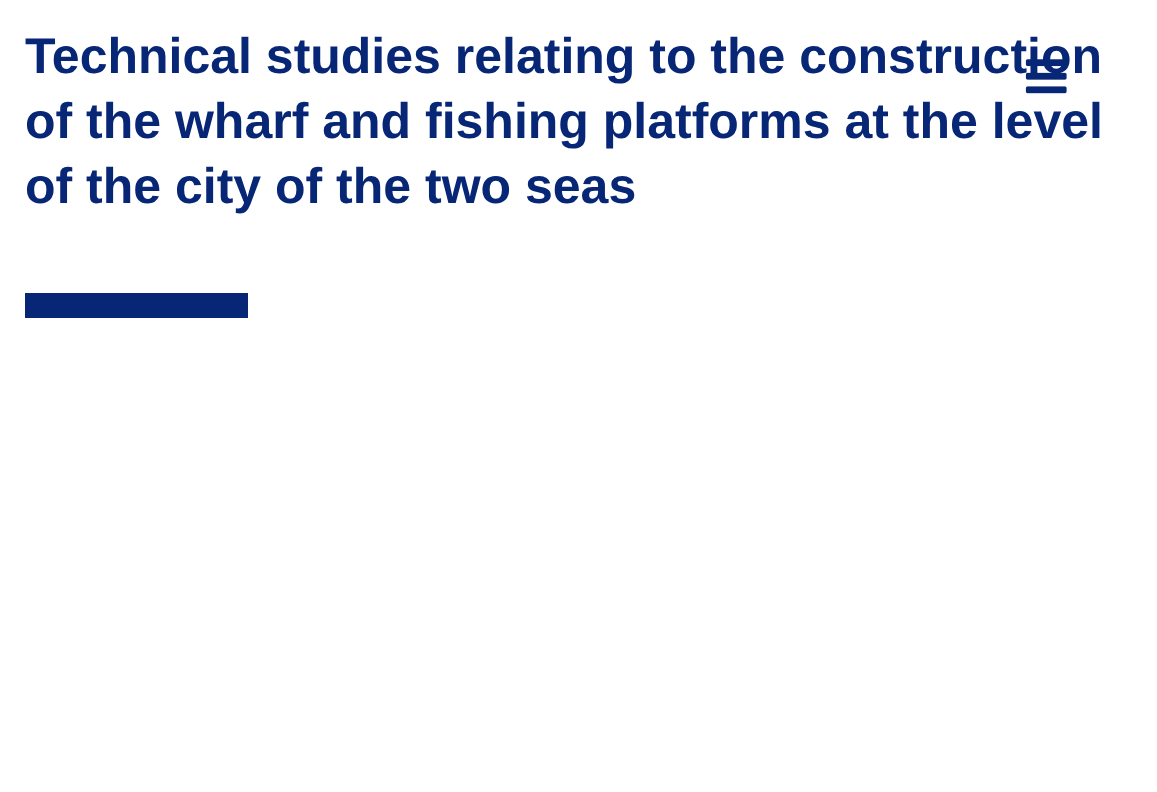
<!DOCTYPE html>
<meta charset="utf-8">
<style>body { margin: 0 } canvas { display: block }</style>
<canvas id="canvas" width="1157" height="792"></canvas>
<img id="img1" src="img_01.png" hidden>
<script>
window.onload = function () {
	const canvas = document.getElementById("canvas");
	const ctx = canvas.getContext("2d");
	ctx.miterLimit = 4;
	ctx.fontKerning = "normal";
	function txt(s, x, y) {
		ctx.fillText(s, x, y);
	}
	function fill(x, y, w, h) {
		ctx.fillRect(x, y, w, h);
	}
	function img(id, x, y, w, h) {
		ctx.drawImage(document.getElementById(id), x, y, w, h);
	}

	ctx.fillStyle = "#FFFFFF";
	fill(0, 0, 1157, 792);
	ctx.fillStyle = "#072676";
	fill(25, 293, 223, 25);
	ctx.font = "bold 50px Liberation Sans";
	txt("Technical studies relating to the construction", 25, 73);
	txt("of the wharf and fishing platforms at the level", 25, 138);
	txt("of the city of the two seas", 25, 203);
	img("img1", 1025, 59, 42, 35);
};
</script>
